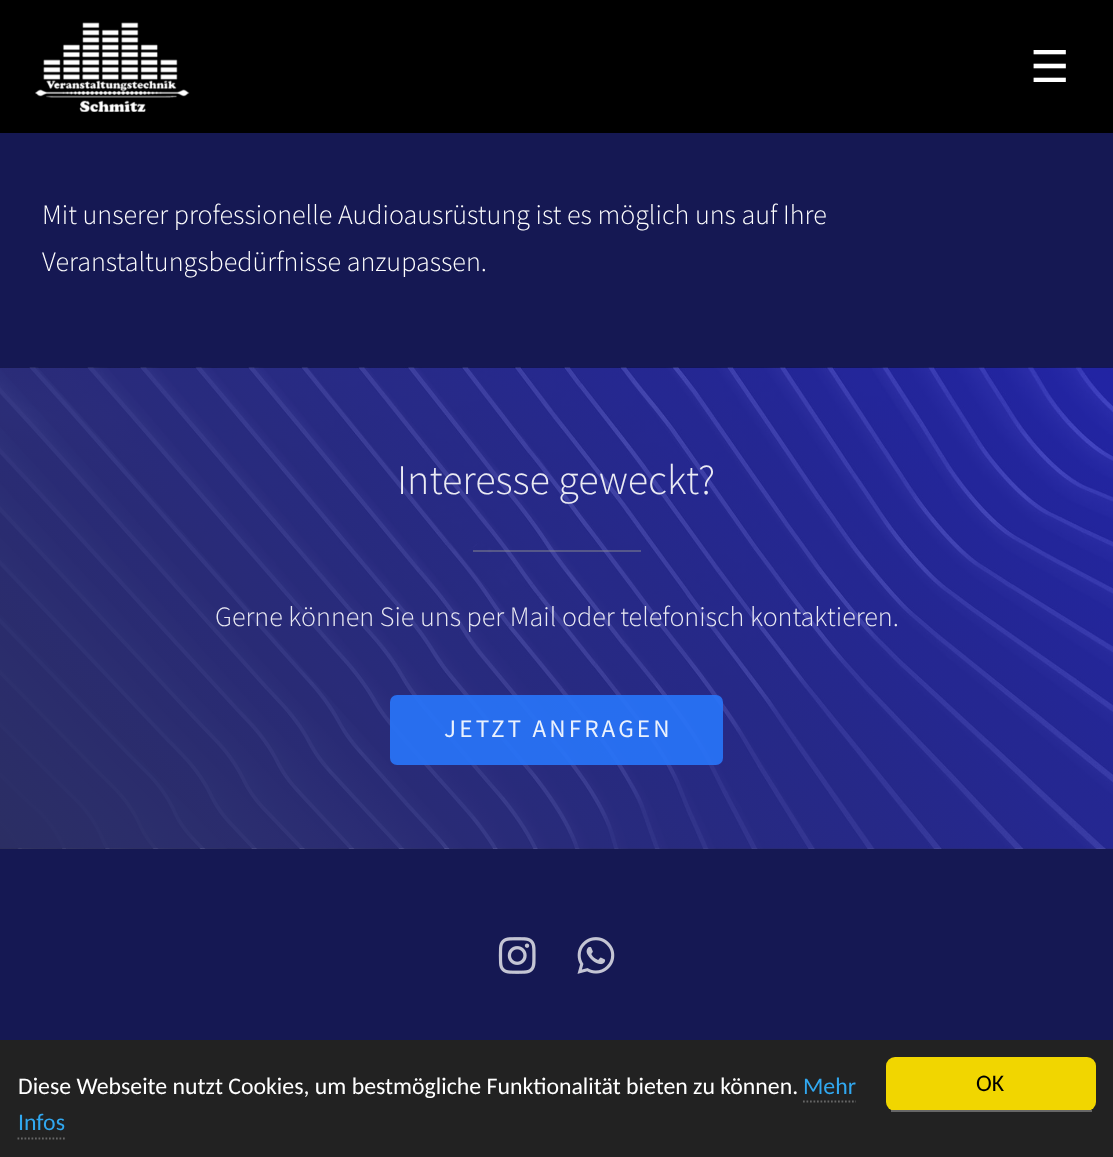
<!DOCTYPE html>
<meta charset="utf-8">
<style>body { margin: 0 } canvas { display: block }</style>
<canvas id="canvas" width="1113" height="1157"></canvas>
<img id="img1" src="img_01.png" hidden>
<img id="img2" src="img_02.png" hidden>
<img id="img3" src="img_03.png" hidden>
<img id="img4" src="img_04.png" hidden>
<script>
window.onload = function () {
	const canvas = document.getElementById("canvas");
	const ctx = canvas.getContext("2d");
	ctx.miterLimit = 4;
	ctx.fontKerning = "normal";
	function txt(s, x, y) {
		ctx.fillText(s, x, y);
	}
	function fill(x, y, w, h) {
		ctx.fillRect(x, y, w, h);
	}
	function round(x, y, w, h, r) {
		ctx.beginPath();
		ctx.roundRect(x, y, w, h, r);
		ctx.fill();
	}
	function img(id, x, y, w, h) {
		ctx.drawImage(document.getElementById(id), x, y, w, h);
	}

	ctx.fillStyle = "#FFFFFF";
	fill(0, 0, 1113, 1157);
	ctx.fillStyle = "#000000";
	fill(0, 0, 1113, 133);
	img("img1", 35, 22, 155, 90);
	ctx.fillStyle = "#151853";
	fill(0, 133, 1113, 235);
	img("img2", 0, 367, 1113, 482);
	ctx.fillStyle = "rgba(144, 144, 144, 0.45)";
	fill(473, 550, 168, 2);
	ctx.fillStyle = "rgba(40, 118, 251, 0.9)";
	round(390, 695, 333, 70, 7);
	ctx.fillStyle = "#151853";
	fill(0, 849, 1113, 191);
	img("img3", 498, 937, 38, 37);
	img("img4", 577, 937, 38, 37);
	ctx.fillStyle = "#222222";
	fill(0, 1040, 1113, 117);
	ctx.beginPath();
	ctx.moveTo(803, 1101.5);
	ctx.lineTo(856, 1101.5);
	ctx.strokeStyle = "#666666";
	ctx.lineWidth = 1.8;
	ctx.setLineDash([1.75, 1.75]);
	ctx.stroke();
	ctx.beginPath();
	ctx.moveTo(17.5, 1138.5);
	ctx.lineTo(65, 1138.5);
	ctx.stroke();
	ctx.fillStyle = "#F1D600";
	round(886, 1057, 210, 54, 9);
	ctx.fillStyle = "#666666";
	fill(891, 1110, 201, 2);
	ctx.font = "44px DejaVu Sans";
	ctx.fillStyle = "#FFFFFF";
	txt("☰", 1030, 82);
	ctx.font = "300 28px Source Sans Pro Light";
	txt("Mit unserer professionelle Audioausrüstung ist es möglich uns auf Ihre", 42, 224);
	txt("Veranstaltungsbedürfnisse anzupassen.", 42, 271);
	ctx.font = "300 42px Source Sans Pro Light";
	ctx.fillStyle = "#EAEAF3";
	txt("Interesse geweckt?", 397, 494);
	ctx.font = "300 28px Source Sans Pro Light";
	txt("Gerne können Sie uns per Mail oder telefonisch kontaktieren.", 215, 626);
	ctx.letterSpacing = "3.1px";
	ctx.font = "25.25px Source Sans Pro";
	ctx.fillStyle = "#EAF1FD";
	txt("JETZT ANFRAGEN", 444, 737);
	ctx.letterSpacing = "0px";
	ctx.font = "23.8px Carlito";
	ctx.fillStyle = "#FFFFFF";
	txt("Diese Webseite nutzt Cookies, um bestmögliche Funktionalität bieten zu können.", 18, 1094);
	ctx.fillStyle = "#31A8F0";
	txt("Mehr", 803, 1094);
	txt("Infos", 18, 1130);
	ctx.fillStyle = "#000000";
	txt("OK", 976, 1091);
};
</script>
